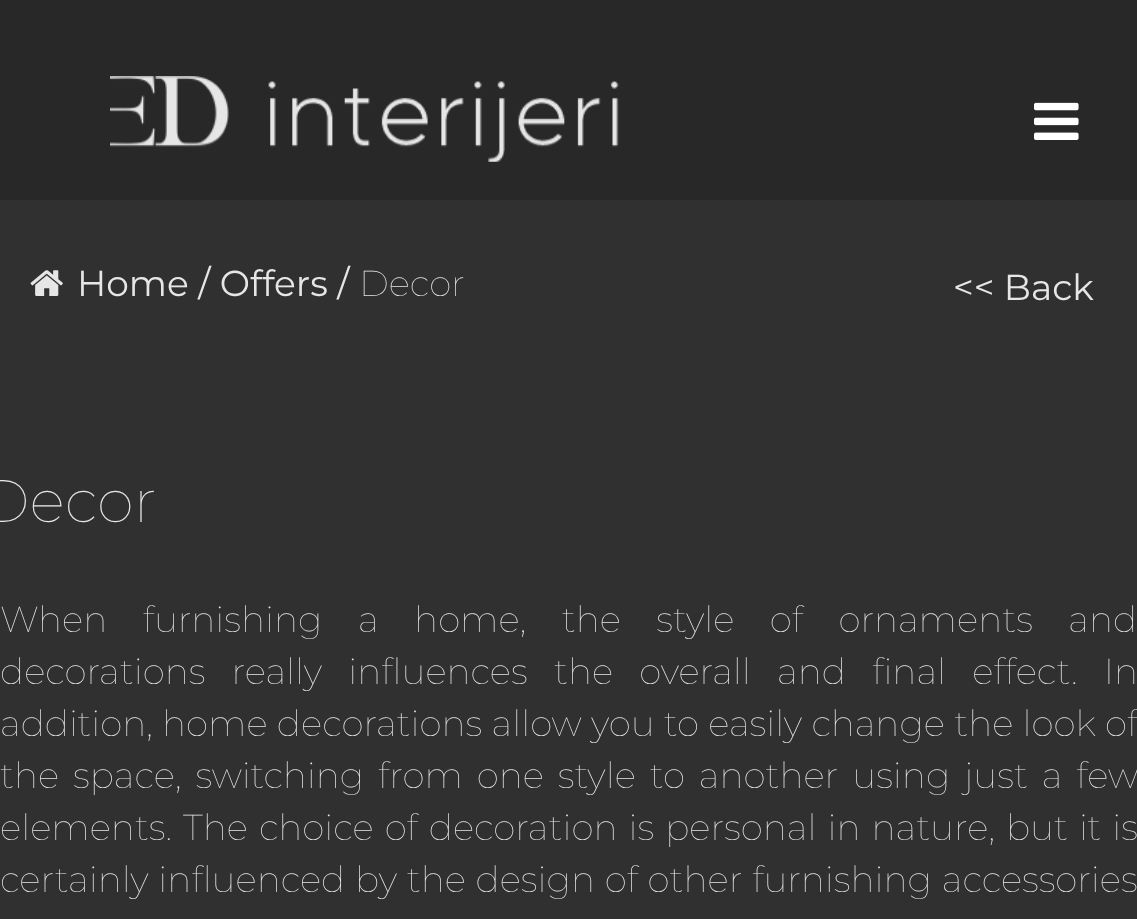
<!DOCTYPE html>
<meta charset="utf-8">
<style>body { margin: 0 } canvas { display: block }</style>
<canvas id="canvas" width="1137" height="919"></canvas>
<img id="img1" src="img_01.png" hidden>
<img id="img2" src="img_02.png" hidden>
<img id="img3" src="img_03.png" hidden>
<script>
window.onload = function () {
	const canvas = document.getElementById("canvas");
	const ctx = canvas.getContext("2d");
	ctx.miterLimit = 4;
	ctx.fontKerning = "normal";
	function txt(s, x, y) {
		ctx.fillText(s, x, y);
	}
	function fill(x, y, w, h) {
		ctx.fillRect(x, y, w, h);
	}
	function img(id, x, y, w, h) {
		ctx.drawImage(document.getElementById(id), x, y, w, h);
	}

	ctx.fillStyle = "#303030";
	fill(0, 0, 1137, 919);
	ctx.fillStyle = "#282828";
	fill(0, 0, 1137, 200);
	img("img1", 110, 76, 509, 86);
	img("img2", 1034, 102, 45, 38);
	img("img3", 30, 270, 33, 26);
	ctx.font = "36px Montserrat";
	ctx.fillStyle = "#E6E6E6";
	txt("Home / Offers /", 77, 296);
	ctx.font = "100 36px Montserrat";
	txt("Decor", 359, 296);
	ctx.font = "36px Montserrat";
	txt("<< Back", 953, 300);
	ctx.font = "100 60px Montserrat";
	txt("Decor", -20, 522);
	ctx.wordSpacing = "26.5px";
	ctx.font = "100 36px Montserrat";
	txt("When furnishing a home, the style of ornaments and", 0, 632);
	ctx.wordSpacing = "17.25px";
	txt("decorations really influences the overall and final effect. In", 0, 684);
	ctx.wordSpacing = "0.25px";
	txt("addition, home decorations allow you to easily change the look of", 0, 736);
	ctx.wordSpacing = "4.9px";
	txt("the space, switching from one style to another using just a few", 0, 788);
	ctx.wordSpacing = "2px";
	txt("elements. The choice of decoration is personal in nature, but it is", 0, 840);
	ctx.wordSpacing = "0.75px";
	txt("certainly influenced by the design of other furnishing accessories", 0, 892);
};
</script>
